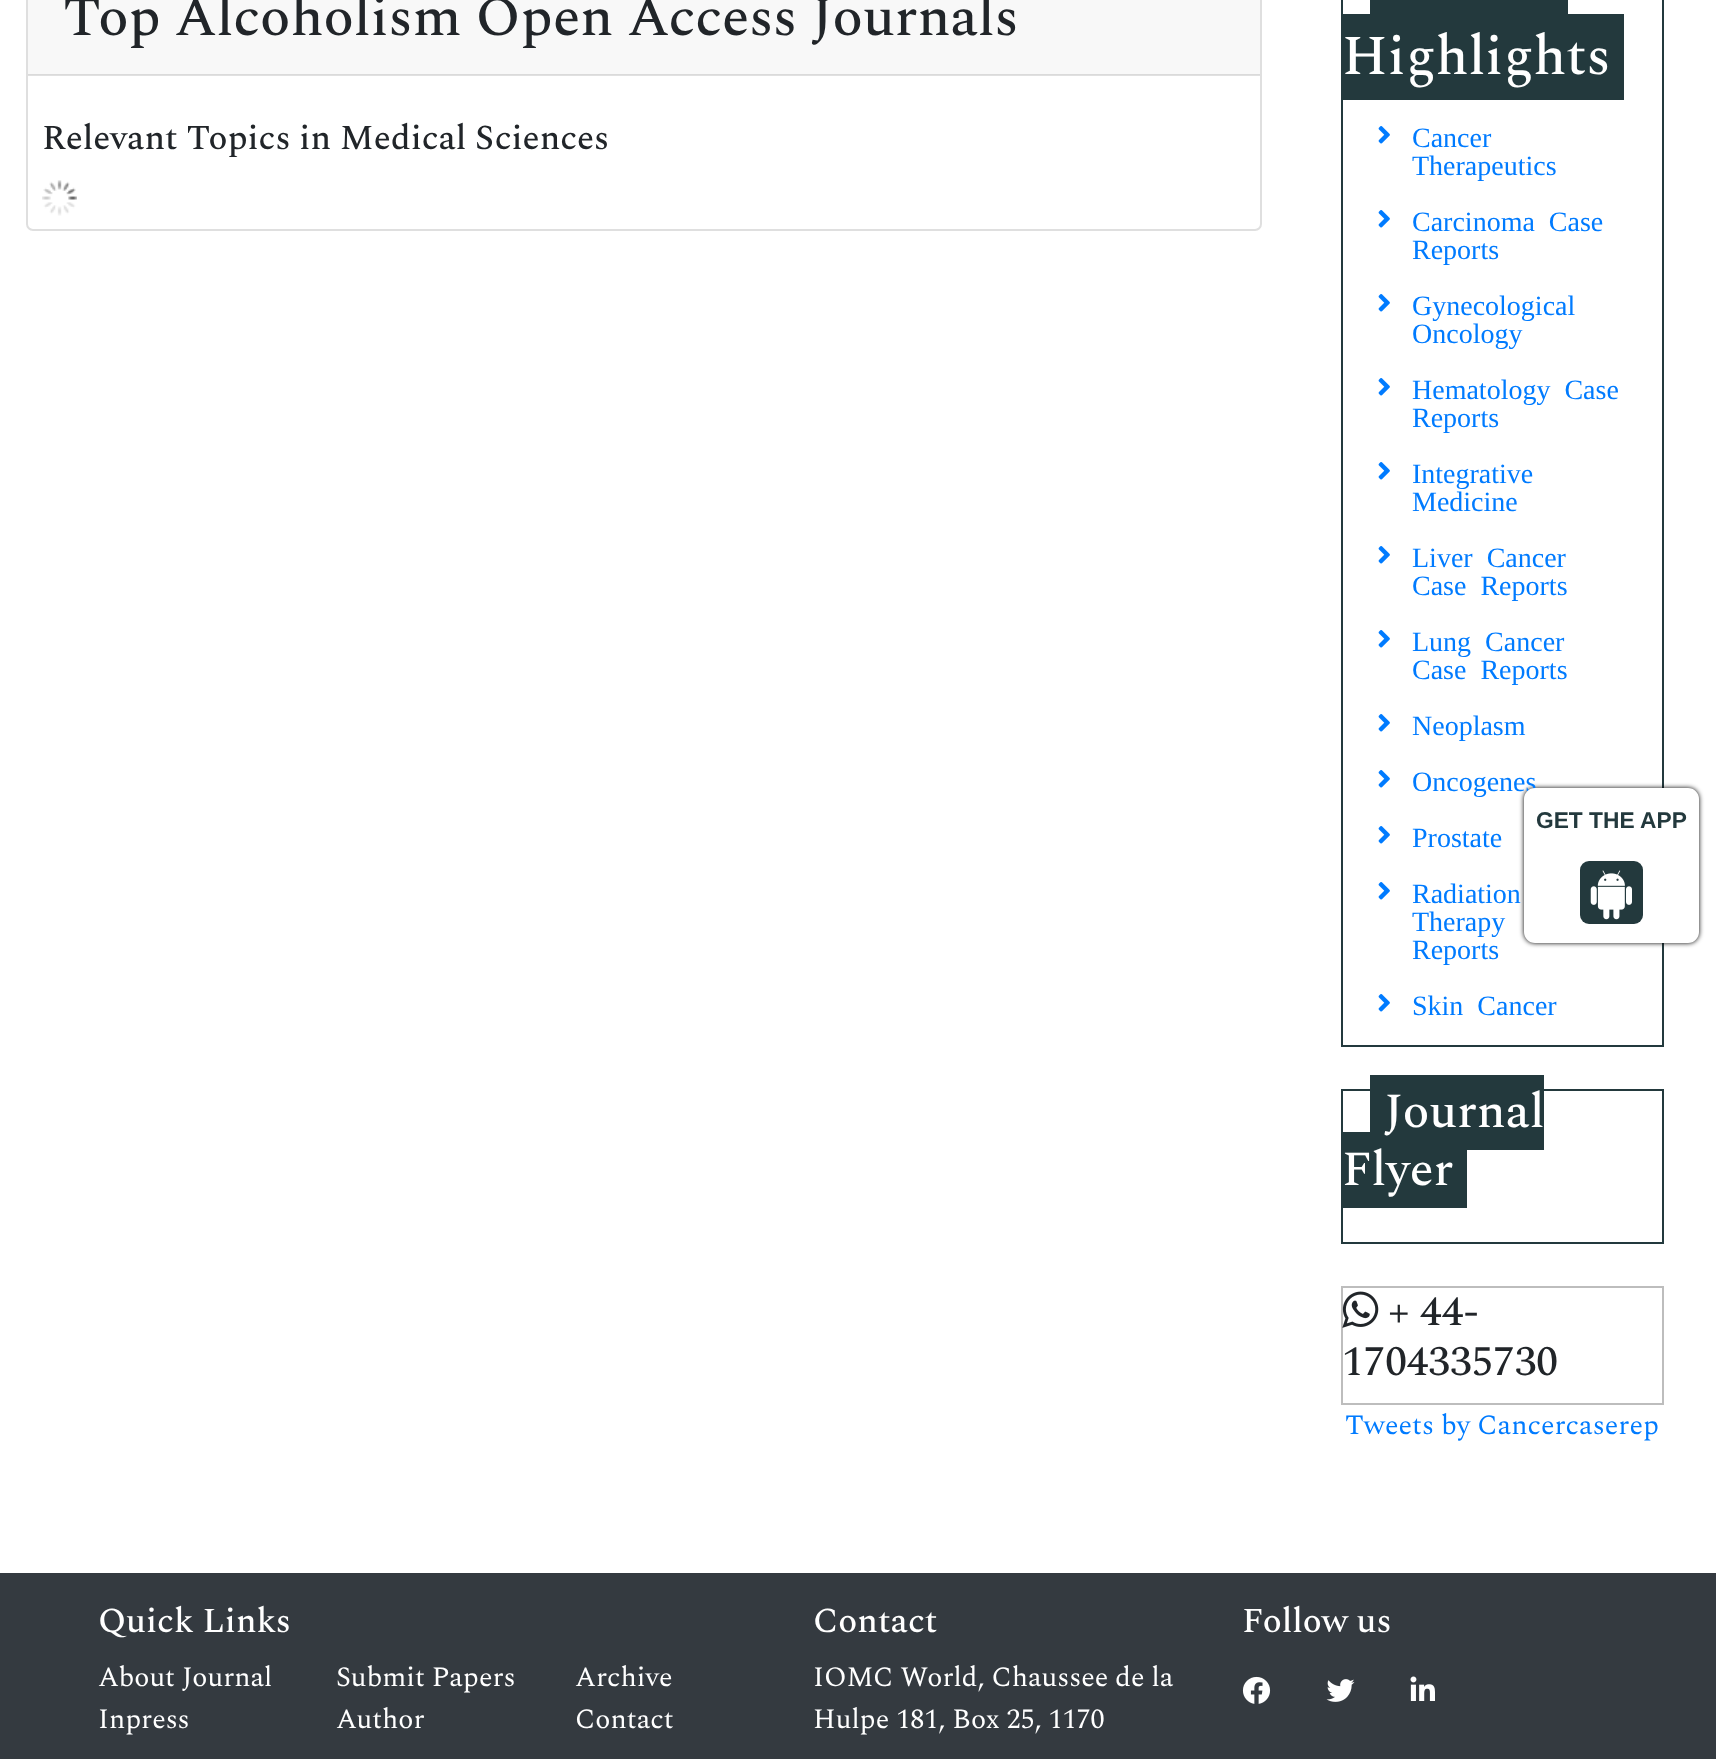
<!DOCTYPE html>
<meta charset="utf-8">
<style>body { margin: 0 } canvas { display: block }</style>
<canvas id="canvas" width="1716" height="1759"></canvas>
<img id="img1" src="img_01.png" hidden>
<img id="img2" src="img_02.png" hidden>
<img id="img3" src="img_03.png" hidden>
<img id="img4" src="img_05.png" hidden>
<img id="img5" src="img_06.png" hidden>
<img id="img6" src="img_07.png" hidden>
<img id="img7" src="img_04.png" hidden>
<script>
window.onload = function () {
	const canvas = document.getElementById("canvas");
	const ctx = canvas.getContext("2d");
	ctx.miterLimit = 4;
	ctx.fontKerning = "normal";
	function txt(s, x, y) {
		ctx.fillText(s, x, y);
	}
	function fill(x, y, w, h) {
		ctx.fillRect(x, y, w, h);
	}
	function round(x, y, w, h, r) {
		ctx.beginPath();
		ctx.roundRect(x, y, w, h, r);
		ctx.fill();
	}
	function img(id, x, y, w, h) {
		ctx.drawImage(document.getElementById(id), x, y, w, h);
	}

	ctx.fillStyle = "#FFFFFF";
	fill(0, 0, 1716, 1759);
	ctx.fillStyle = "#E0E0E0";
	fill(28, 75, 1232, 1);
	ctx.beginPath();
	ctx.roundRect(27, -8, 1234, 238, 6);
	ctx.strokeStyle = "#DFDFDF";
	ctx.lineWidth = 2;
	ctx.stroke();
	ctx.fillStyle = "#F8F8F8";
	fill(28, 0, 1232, 74);
	ctx.fillStyle = "#DADADA";
	fill(28, 74, 1232, 1);
	img("img1", 42, 180, 35, 36);
	ctx.strokeStyle = "#23393D";
	ctx.strokeRect(1342, -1, 321, 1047);
	ctx.fillStyle = "#23393D";
	fill(1370, 0, 198, 14);
	fill(1343, 14, 281, 86);
	img("img2", 1378, 126, 12, 18);
	img("img2", 1378, 210, 12, 18);
	img("img2", 1378, 294, 12, 18);
	img("img2", 1378, 378, 12, 18);
	img("img2", 1378, 462, 12, 18);
	img("img2", 1378, 546, 12, 18);
	img("img2", 1378, 630, 12, 18);
	img("img2", 1378, 714, 12, 18);
	img("img2", 1378, 770, 12, 18);
	img("img2", 1378, 826, 12, 18);
	img("img2", 1378, 882, 12, 18);
	img("img2", 1378, 994, 12, 18);
	ctx.strokeRect(1342, 1090, 321, 153);
	fill(1370, 1075, 174, 75);
	fill(1343, 1132, 124, 76);
	ctx.strokeStyle = "#BDBDBD";
	ctx.strokeRect(1342, 1287, 321, 117);
	img("img3", 1342, 1291, 37, 37);
	ctx.fillStyle = "#000000";
	ctx.filter = "blur(2.5px)";
	ctx.beginPath();
	ctx.roundRect(1524, 788, 175, 155, 11);
	ctx.fill();
	ctx.filter = "none";
	ctx.fillStyle = "#343A40";
	fill(0, 1573, 1716, 186);
	img("img4", 1242, 1676, 29, 28);
	img("img5", 1326, 1679, 29, 23);
	img("img6", 1410, 1676, 25, 25);
	ctx.font = "500 56px Spectral";
	ctx.fillStyle = "#212529";
	txt("Top Alcoholism Open Access Journals", 63, 35);
	ctx.font = "500 35px Spectral";
	txt("Relevant Topics in Medical Sciences", 42, 149);
	ctx.font = "500 56px Spectral";
	ctx.fillStyle = "#FFFFFF";
	txt("Highlights", 1342, 74);
	ctx.font = "28px Liberation Serif";
	ctx.fillStyle = "#007BFF";
	txt("Cancer", 1412, 147);
	txt("Therapeutics", 1412, 175);
	ctx.wordSpacing = "7px";
	txt("Carcinoma Case", 1412, 231);
	ctx.wordSpacing = "0px";
	txt("Reports", 1412, 259);
	txt("Gynecological", 1412, 315);
	txt("Oncology", 1412, 343);
	ctx.wordSpacing = "7px";
	txt("Hematology Case", 1412, 399);
	ctx.wordSpacing = "0px";
	txt("Reports", 1412, 427);
	txt("Integrative", 1412, 483);
	txt("Medicine", 1412, 511);
	ctx.wordSpacing = "7px";
	txt("Liver Cancer", 1412, 567);
	txt("Case Reports", 1412, 595);
	txt("Lung Cancer", 1412, 651);
	txt("Case Reports", 1412, 679);
	ctx.wordSpacing = "0px";
	txt("Neoplasm", 1412, 735);
	txt("Oncogenes", 1412, 791);
	ctx.wordSpacing = "7px";
	txt("Prostate", 1412, 847);
	ctx.wordSpacing = "0px";
	txt("Radiation", 1412, 903);
	ctx.wordSpacing = "7px";
	txt("Therapy", 1412, 931);
	ctx.wordSpacing = "0px";
	txt("Reports", 1412, 959);
	ctx.wordSpacing = "7px";
	txt("Skin Cancer", 1412, 1015);
	ctx.wordSpacing = "0px";
	ctx.font = "500 49px Spectral";
	ctx.fillStyle = "#FFFFFF";
	txt("Journal", 1384, 1127);
	txt("Flyer", 1342, 1185);
	ctx.font = "500 42px Spectral";
	ctx.fillStyle = "#212529";
	txt("+ 44-", 1388, 1325);
	txt("1704335730", 1342, 1375);
	ctx.font = "28px Spectral";
	ctx.fillStyle = "#007BFF";
	txt("Tweets by Cancercaserep", 1345, 1434);
	ctx.fillStyle = "#FFFFFF";
	ctx.beginPath();
	ctx.roundRect(1525, 789, 173, 153, 10);
	ctx.fill();
	ctx.strokeStyle = "#FFFFFF";
	ctx.stroke();
	ctx.font = "bold 22.75px Liberation Sans";
	ctx.fillStyle = "#23393D";
	txt("GET THE APP", 1536, 828);
	round(1580, 861, 63, 63, 9);
	img("img7", 1590, 870, 42, 50);
	ctx.font = "500 35px Spectral";
	ctx.fillStyle = "#FFFFFF";
	txt("Quick Links", 98, 1632);
	ctx.font = "28px Spectral";
	txt("About Journal", 98, 1686);
	txt("Inpress", 98, 1728);
	txt("Submit Papers", 336, 1686);
	txt("Author", 336, 1728);
	txt("Archive", 575, 1686);
	txt("Contact", 575, 1728);
	ctx.font = "500 35px Spectral";
	txt("Contact", 813, 1632);
	ctx.font = "28px Spectral";
	txt("IOMC World, Chaussee de la", 813, 1686);
	txt("Hulpe 181, Box 25, 1170", 813, 1728);
	ctx.font = "500 35px Spectral";
	txt("Follow us", 1242, 1632);
};
</script>
